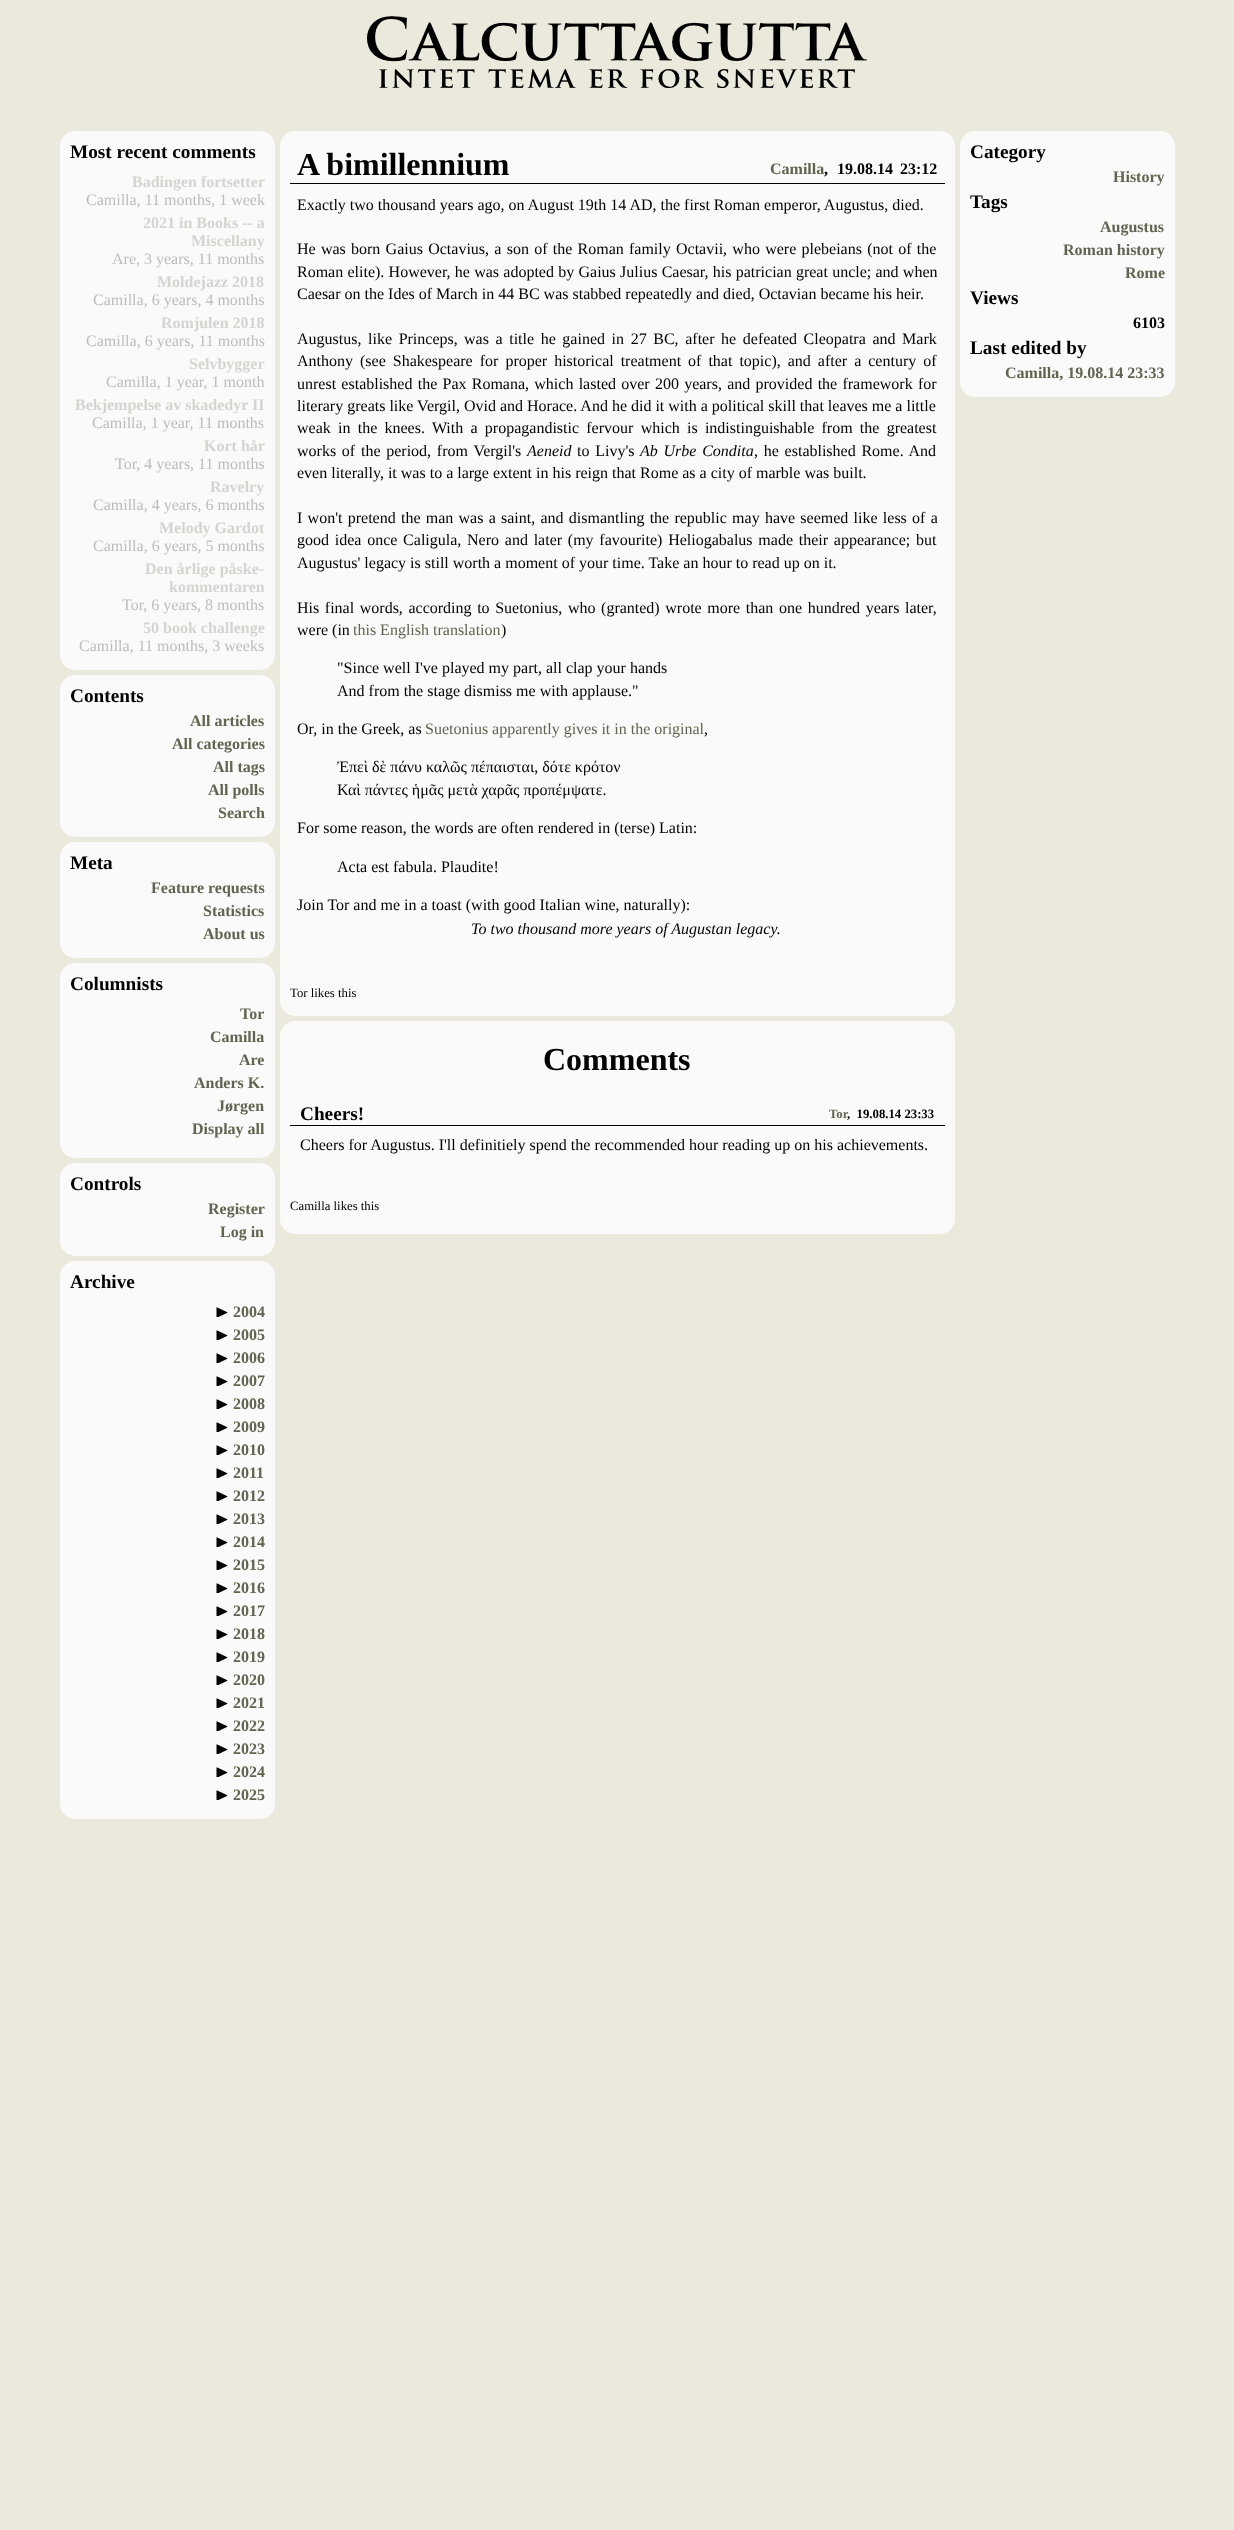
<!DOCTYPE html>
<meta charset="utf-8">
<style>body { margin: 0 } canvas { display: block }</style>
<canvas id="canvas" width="1234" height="2530"></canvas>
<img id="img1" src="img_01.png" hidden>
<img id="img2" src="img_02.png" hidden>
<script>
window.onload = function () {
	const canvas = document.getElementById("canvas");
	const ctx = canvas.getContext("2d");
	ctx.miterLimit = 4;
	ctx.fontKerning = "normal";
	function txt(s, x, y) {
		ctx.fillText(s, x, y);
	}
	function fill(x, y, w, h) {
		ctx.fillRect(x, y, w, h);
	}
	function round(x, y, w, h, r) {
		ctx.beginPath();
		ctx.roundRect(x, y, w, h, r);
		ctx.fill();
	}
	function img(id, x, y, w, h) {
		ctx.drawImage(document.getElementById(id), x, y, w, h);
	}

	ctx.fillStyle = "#EAE9DB";
	fill(0, 0, 1234, 2530);
	img("img1", 367, 16, 500, 72);
	ctx.fillStyle = "#FAFAFA";
	round(60, 131, 215, 539, 15);
	round(60, 675, 215, 162, 15);
	round(60, 842, 215, 116, 15);
	round(60, 963, 215, 195, 15);
	round(60, 1163, 215, 93, 15);
	round(60, 1261, 215, 558, 15);
	img("img2", 216, 1307, 12, 10);
	img("img2", 216, 1330, 12, 10);
	img("img2", 216, 1353, 12, 10);
	img("img2", 216, 1376, 12, 10);
	img("img2", 216, 1399, 12, 10);
	img("img2", 216, 1422, 12, 10);
	img("img2", 216, 1445, 12, 10);
	img("img2", 216, 1468, 12, 10);
	img("img2", 216, 1491, 12, 10);
	img("img2", 216, 1514, 12, 10);
	img("img2", 216, 1537, 12, 10);
	img("img2", 216, 1560, 12, 10);
	img("img2", 216, 1583, 12, 10);
	img("img2", 216, 1606, 12, 10);
	img("img2", 216, 1629, 12, 10);
	img("img2", 216, 1652, 12, 10);
	img("img2", 216, 1675, 12, 10);
	img("img2", 216, 1698, 12, 10);
	img("img2", 216, 1721, 12, 10);
	img("img2", 216, 1744, 12, 10);
	img("img2", 216, 1767, 12, 10);
	img("img2", 216, 1790, 12, 10);
	round(280, 131, 675, 885, 15);
	ctx.fillStyle = "#000000";
	fill(290, 183, 655, 1);
	ctx.fillStyle = "#FAFAFA";
	round(280, 1021, 675, 213, 15);
	ctx.fillStyle = "#000000";
	fill(290, 1125, 655, 1);
	ctx.fillStyle = "#FAFAFA";
	round(960, 131, 215, 266, 15);
	ctx.font = "bold 19.25px Liberation Serif";
	ctx.fillStyle = "#000000";
	txt("Most recent comments", 70, 158);
	ctx.font = "bold 16px Liberation Serif";
	ctx.fillStyle = "#D3D5CF";
	txt("Badingen fortsetter", 132, 187);
	ctx.font = "16px Liberation Serif";
	ctx.fillStyle = "#BCBCBC";
	txt("Camilla, 11 months, 1 week", 86, 205);
	ctx.font = "bold 16px Liberation Serif";
	ctx.fillStyle = "#D3D5CF";
	txt("2021 in Books -- a", 143, 228);
	txt("Miscellany", 191, 246);
	ctx.font = "16px Liberation Serif";
	ctx.fillStyle = "#BCBCBC";
	txt("Are, 3 years, 11 months", 112, 264);
	ctx.font = "bold 16px Liberation Serif";
	ctx.fillStyle = "#D3D5CF";
	txt("Moldejazz 2018", 157, 287);
	ctx.font = "16px Liberation Serif";
	ctx.fillStyle = "#BCBCBC";
	txt("Camilla, 6 years, 4 months", 93, 305);
	ctx.font = "bold 16px Liberation Serif";
	ctx.fillStyle = "#D3D5CF";
	txt("Romjulen 2018", 161, 328);
	ctx.font = "16px Liberation Serif";
	ctx.fillStyle = "#BCBCBC";
	txt("Camilla, 6 years, 11 months", 86, 346);
	ctx.font = "bold 16px Liberation Serif";
	ctx.fillStyle = "#D3D5CF";
	txt("Selvbygger", 189, 369);
	ctx.font = "16px Liberation Serif";
	ctx.fillStyle = "#BCBCBC";
	txt("Camilla, 1 year, 1 month", 106, 387);
	ctx.font = "bold 16px Liberation Serif";
	ctx.fillStyle = "#D3D5CF";
	txt("Bekjempelse av skadedyr II", 75, 410);
	ctx.font = "16px Liberation Serif";
	ctx.fillStyle = "#BCBCBC";
	txt("Camilla, 1 year, 11 months", 92, 428);
	ctx.font = "bold 16px Liberation Serif";
	ctx.fillStyle = "#D3D5CF";
	txt("Kort hår", 204, 451);
	ctx.font = "16px Liberation Serif";
	ctx.fillStyle = "#BCBCBC";
	txt("Tor, 4 years, 11 months", 115, 469);
	ctx.font = "bold 16px Liberation Serif";
	ctx.fillStyle = "#D3D5CF";
	txt("Ravelry", 210, 492);
	ctx.font = "16px Liberation Serif";
	ctx.fillStyle = "#BCBCBC";
	txt("Camilla, 4 years, 6 months", 93, 510);
	ctx.font = "bold 16px Liberation Serif";
	ctx.fillStyle = "#D3D5CF";
	txt("Melody Gardot", 159, 533);
	ctx.font = "16px Liberation Serif";
	ctx.fillStyle = "#BCBCBC";
	txt("Camilla, 6 years, 5 months", 93, 551);
	ctx.font = "bold 16px Liberation Serif";
	ctx.fillStyle = "#D3D5CF";
	txt("Den årlige påske-", 145, 574);
	txt("kommentaren", 169, 592);
	ctx.font = "16px Liberation Serif";
	ctx.fillStyle = "#BCBCBC";
	txt("Tor, 6 years, 8 months", 122, 610);
	ctx.font = "bold 16px Liberation Serif";
	ctx.fillStyle = "#D3D5CF";
	txt("50 book challenge", 143, 633);
	ctx.font = "16px Liberation Serif";
	ctx.fillStyle = "#BCBCBC";
	txt("Camilla, 11 months, 3 weeks", 79, 651);
	ctx.font = "bold 19.25px Liberation Serif";
	ctx.fillStyle = "#000000";
	txt("Contents", 70, 702);
	ctx.font = "bold 16px Liberation Serif";
	ctx.fillStyle = "#5F654F";
	txt("All articles", 190, 726);
	txt("All categories", 172, 749);
	txt("All tags", 213, 772);
	txt("All polls", 208, 795);
	txt("Search", 218, 818);
	ctx.font = "bold 19.25px Liberation Serif";
	ctx.fillStyle = "#000000";
	txt("Meta", 70, 869);
	ctx.font = "bold 16px Liberation Serif";
	ctx.fillStyle = "#5F654F";
	txt("Feature requests", 151, 893);
	txt("Statistics", 203, 916);
	txt("About us", 203, 939);
	ctx.font = "bold 19.25px Liberation Serif";
	ctx.fillStyle = "#000000";
	txt("Columnists", 70, 990);
	ctx.font = "bold 16px Liberation Serif";
	ctx.fillStyle = "#5F654F";
	txt("Tor", 240, 1019);
	txt("Camilla", 210, 1042);
	txt("Are", 239, 1065);
	txt("Anders K.", 194, 1088);
	txt("Jørgen", 217, 1111);
	txt("Display all", 192, 1134);
	ctx.font = "bold 19.25px Liberation Serif";
	ctx.fillStyle = "#000000";
	txt("Controls", 70, 1190);
	ctx.font = "bold 16px Liberation Serif";
	ctx.fillStyle = "#5F654F";
	txt("Register", 208, 1214);
	txt("Log in", 220, 1237);
	ctx.font = "bold 19.25px Liberation Serif";
	ctx.fillStyle = "#000000";
	txt("Archive", 70, 1288);
	ctx.font = "bold 16px Liberation Serif";
	ctx.fillStyle = "#5F654F";
	txt("2004", 233, 1317);
	txt("2005", 233, 1340);
	txt("2006", 233, 1363);
	txt("2007", 233, 1386);
	txt("2008", 233, 1409);
	txt("2009", 233, 1432);
	txt("2010", 233, 1455);
	txt("2011", 233, 1478);
	txt("2012", 233, 1501);
	txt("2013", 233, 1524);
	txt("2014", 233, 1547);
	txt("2015", 233, 1570);
	txt("2016", 233, 1593);
	txt("2017", 233, 1616);
	txt("2018", 233, 1639);
	txt("2019", 233, 1662);
	txt("2020", 233, 1685);
	txt("2021", 233, 1708);
	txt("2022", 233, 1731);
	txt("2023", 233, 1754);
	txt("2024", 233, 1777);
	txt("2025", 233, 1800);
	ctx.font = "bold 32px Liberation Serif";
	ctx.fillStyle = "#000000";
	txt("A bimillennium", 297, 175);
	ctx.font = "bold 16px Liberation Serif";
	ctx.fillStyle = "#5F654F";
	txt("Camilla", 770, 174);
	ctx.fillStyle = "#000000";
	txt(",", 824, 174);
	txt("19.08.14", 837, 174);
	txt("23:12", 900, 174);
	ctx.font = "16px Liberation Serif";
	txt("Exactly two thousand years ago, on August 19th 14 AD, the first Roman emperor, Augustus, died.", 297, 210);
	ctx.wordSpacing = "1.25px";
	txt("He was born Gaius Octavius, a son of the Roman family Octavii, who were plebeians (not of the", 297, 254);
	ctx.wordSpacing = "0.25px";
	txt("Roman elite). However, he was adopted by Gaius Julius Caesar, his patrician great uncle; and when", 297, 277);
	ctx.wordSpacing = "0px";
	txt("Caesar on the Ides of March in 44 BC was stabbed repeatedly and died, Octavian became his heir.", 297, 299);
	ctx.wordSpacing = "2.6px";
	txt("Augustus, like Princeps,", 297, 344);
	txt("was a title he gained in 27 BC, after he defeated Cleopatra and Mark", 464, 344);
	ctx.wordSpacing = "3px";
	txt("Anthony (see Shakespeare for proper historical treatment of that topic), and after a century of", 297, 366);
	ctx.wordSpacing = "1.25px";
	txt("unrest established the Pax Romana, which lasted over 200 years, and provided the framework for", 297, 389);
	ctx.wordSpacing = "0px";
	txt("literary greats like Vergil, Ovid and Horace. And he did it with a political skill that leaves me a little", 297, 411);
	ctx.wordSpacing = "3.25px";
	txt("weak in the knees. With a propagandistic fervour which is indistinguishable from the greatest", 297, 433);
	ctx.wordSpacing = "1.75px";
	txt("works of the period, from Vergil's", 297, 456);
	ctx.wordSpacing = "0px";
	ctx.font = "italic 16px Liberation Serif";
	txt("Aeneid", 527, 456);
	ctx.wordSpacing = "1.75px";
	ctx.font = "16px Liberation Serif";
	txt("to Livy's", 577, 456);
	ctx.font = "italic 16px Liberation Serif";
	txt("Ab Urbe Condita", 640, 456);
	ctx.font = "16px Liberation Serif";
	txt(", he established Rome. And", 754, 456);
	ctx.wordSpacing = "0px";
	txt("even literally, it was to a large extent in his reign that Rome as a city of marble was built.", 297, 478);
	ctx.wordSpacing = "1.25px";
	txt("I won't pretend the man was a saint, and dismantling the republic may have seemed like less of a", 297, 523);
	ctx.wordSpacing = "1.75px";
	txt("good idea once Caligula, Nero and later (my favourite) Heliogabalus made their appearance; but", 297, 545);
	ctx.wordSpacing = "0px";
	txt("Augustus' legacy is still worth a moment of your time. Take an hour to read up on it.", 297, 568);
	ctx.wordSpacing = "1.6px";
	txt("His final words, according to Suetonius, who (granted) wrote more than one hundred years later,", 297, 613);
	ctx.wordSpacing = "0px";
	txt("were (in", 297, 635);
	ctx.fillStyle = "#5F654F";
	txt("this English translation", 353, 635);
	ctx.fillStyle = "#000000";
	txt(")", 501, 635);
	txt("\"Since well I've played my part, all clap your hands", 337, 673);
	txt("And from the stage dismiss me with applause.\"", 337, 696);
	txt("Or, in the Greek, as", 297, 734);
	ctx.fillStyle = "#5F654F";
	txt("Suetonius apparently gives it in the original", 425, 734);
	ctx.fillStyle = "#000000";
	txt(",", 704, 734);
	txt("Ἐπεὶ δὲ πάνυ καλῶς πέπαισται, δότε κρότον", 337, 772);
	txt("Καὶ πάντες ἡμᾶς μετὰ χαρᾶς προπέμψατε.", 337, 795);
	txt("For some reason, the words are often rendered in (terse) Latin:", 297, 833);
	txt("Acta est fabula. Plaudite!", 337, 872);
	txt("Join Tor and me in a toast (with good Italian wine, naturally):", 297, 910);
	ctx.font = "italic 16px Liberation Serif";
	txt("To two thousand more years of Augustan legacy.", 471, 934);
	ctx.font = "12.75px Liberation Serif";
	txt("Tor likes this", 290, 997);
	ctx.font = "bold 32px Liberation Serif";
	txt("Comments", 543, 1070);
	ctx.font = "bold 19.25px Liberation Serif";
	txt("Cheers!", 300, 1120);
	ctx.font = "bold 12.75px Liberation Serif";
	ctx.fillStyle = "#5F654F";
	txt("Tor", 829, 1118);
	ctx.fillStyle = "#000000";
	txt(",  19.08.14 23:33", 847, 1118);
	ctx.font = "16px Liberation Serif";
	txt("Cheers for Augustus. I'll definitiely spend the recommended hour reading up on his achievements.", 300, 1150);
	ctx.font = "12.75px Liberation Serif";
	txt("Camilla likes this", 290, 1210);
	ctx.font = "bold 19.25px Liberation Serif";
	txt("Category", 970, 158);
	ctx.font = "bold 16px Liberation Serif";
	ctx.fillStyle = "#5F654F";
	txt("History", 1113, 182);
	ctx.font = "bold 19.25px Liberation Serif";
	ctx.fillStyle = "#000000";
	txt("Tags", 970, 208);
	ctx.font = "bold 16px Liberation Serif";
	ctx.fillStyle = "#5F654F";
	txt("Augustus", 1100, 232);
	txt("Roman history", 1063, 255);
	txt("Rome", 1125, 278);
	ctx.font = "bold 19.25px Liberation Serif";
	ctx.fillStyle = "#000000";
	txt("Views", 970, 304);
	ctx.font = "bold 16px Liberation Serif";
	txt("6103", 1133, 328);
	ctx.font = "bold 19.25px Liberation Serif";
	txt("Last edited by", 970, 354);
	ctx.font = "bold 16px Liberation Serif";
	ctx.fillStyle = "#5F654F";
	txt("Camilla, 19.08.14 23:33", 1005, 378);
};
</script>
